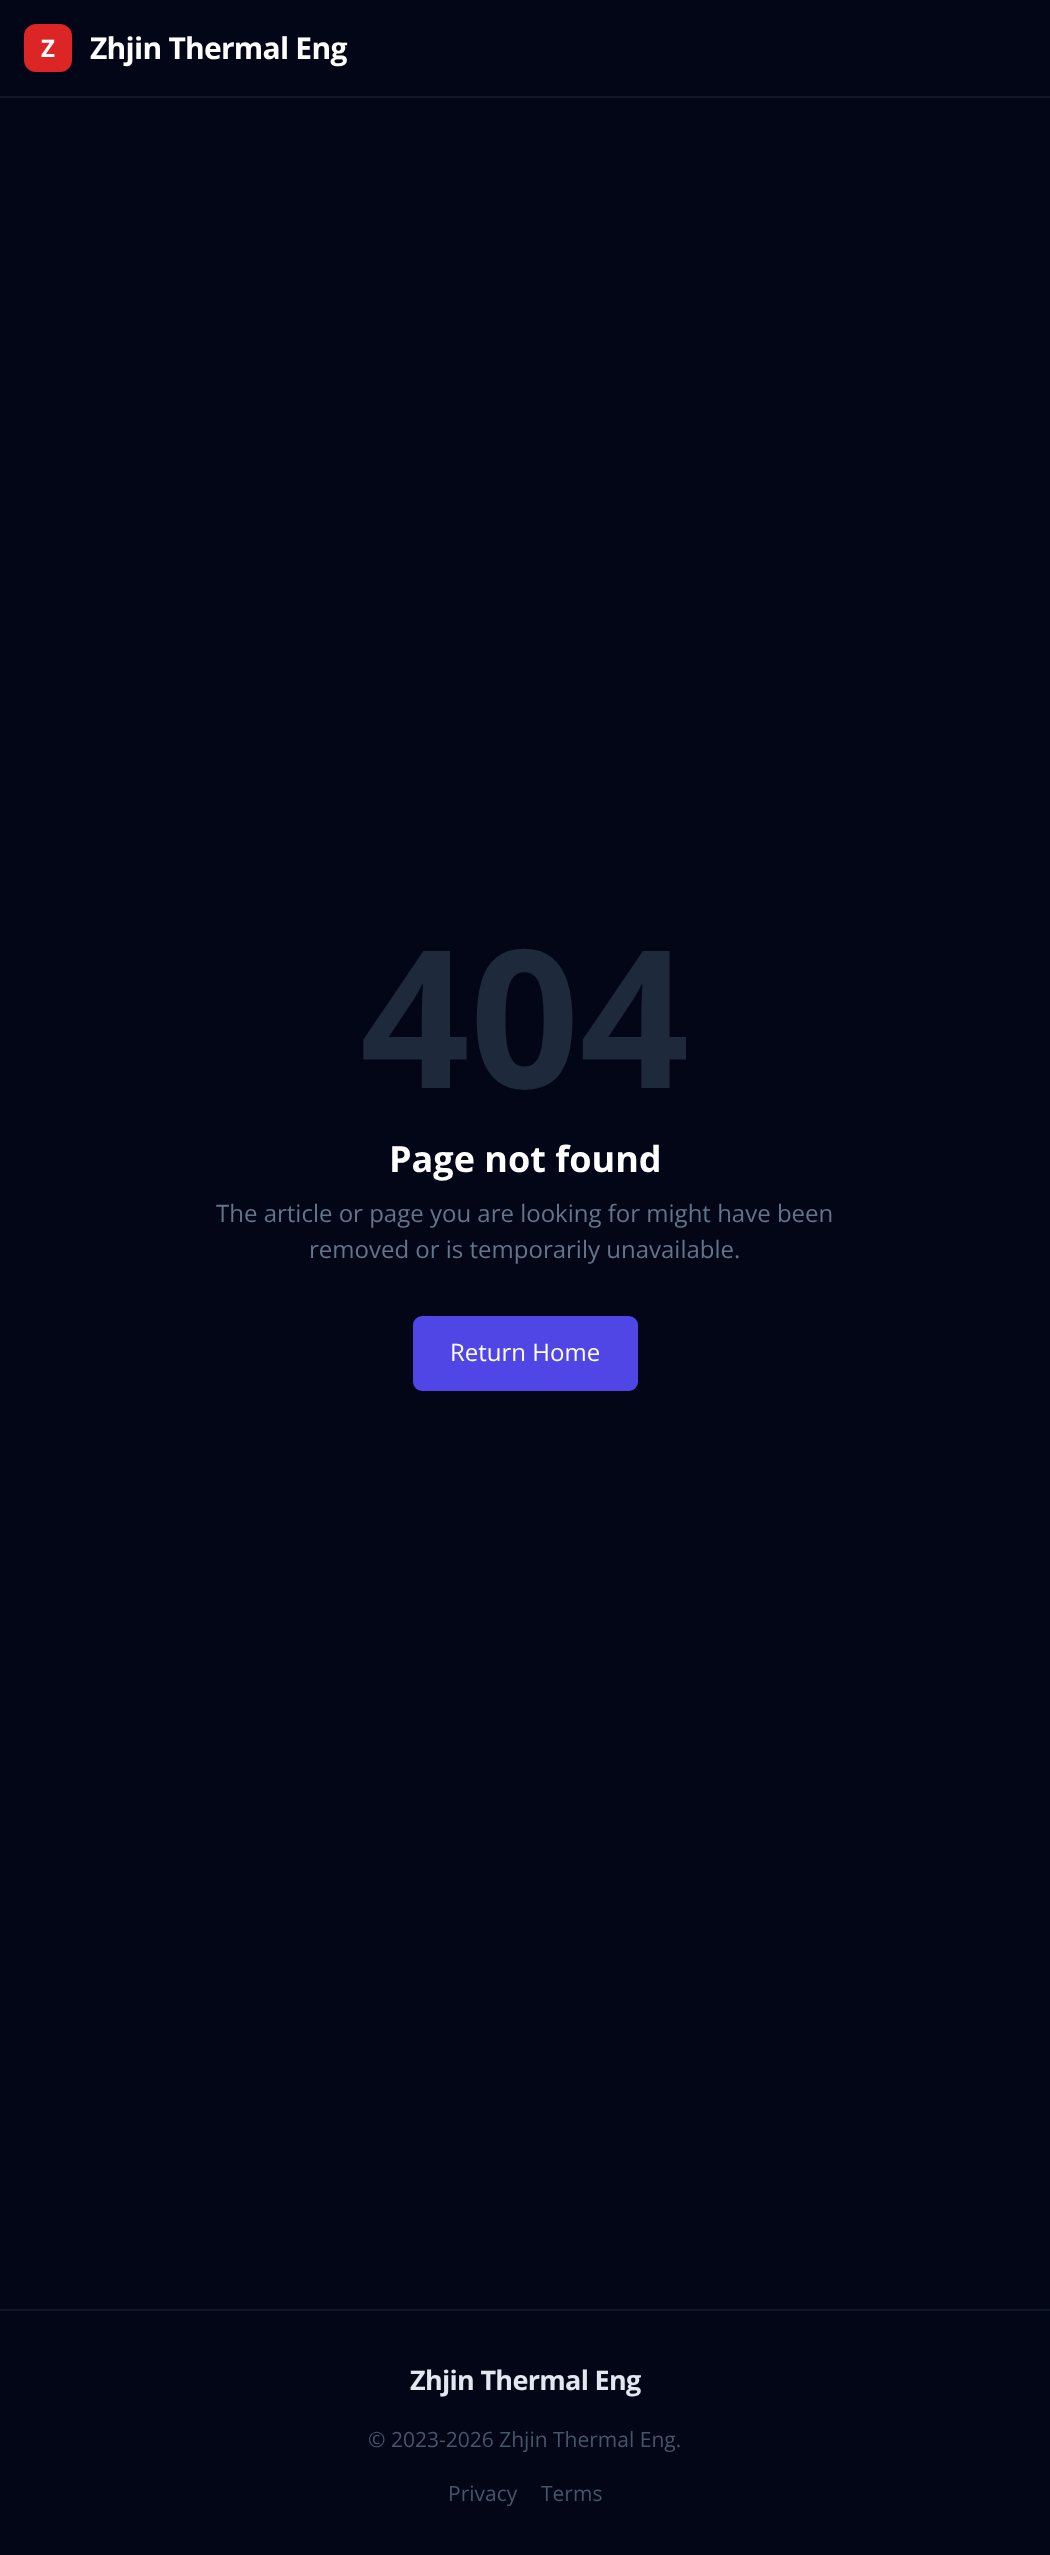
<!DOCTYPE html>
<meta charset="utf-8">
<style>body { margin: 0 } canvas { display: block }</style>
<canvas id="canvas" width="1050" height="2555"></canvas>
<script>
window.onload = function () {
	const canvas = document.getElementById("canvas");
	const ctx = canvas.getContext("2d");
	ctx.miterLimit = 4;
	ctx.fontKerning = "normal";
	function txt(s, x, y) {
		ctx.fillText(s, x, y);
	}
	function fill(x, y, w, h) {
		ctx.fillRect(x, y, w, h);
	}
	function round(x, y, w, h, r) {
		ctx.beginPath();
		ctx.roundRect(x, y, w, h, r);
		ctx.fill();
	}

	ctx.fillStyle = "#020617";
	fill(0, 0, 1050, 2555);
	ctx.fillStyle = "#101829";
	fill(0, 96, 1050, 2);
	ctx.fillStyle = "#DC2626";
	round(24, 24, 48, 48, 12);
	ctx.fillStyle = "#4F46E5";
	round(413, 1316, 225, 75, 9);
	ctx.fillStyle = "#0F172A";
	fill(0, 2309, 1050, 2);
	ctx.font = "bold 24px Open Sans";
	ctx.fillStyle = "#FFFFFF";
	txt("Z", 41, 57);
	ctx.letterSpacing = "-0.75px";
	ctx.font = "bold 30px Open Sans";
	txt("Zhjin Thermal Eng", 90, 59);
	ctx.letterSpacing = "0px";
	ctx.font = "bold 192px Open Sans";
	ctx.fillStyle = "#1E293B";
	txt("404", 360, 1088);
	ctx.font = "bold 36px Open Sans";
	ctx.fillStyle = "#FFFFFF";
	txt("Page not found", 389, 1172);
	ctx.font = "24px Open Sans";
	ctx.fillStyle = "#64748B";
	txt("The article or page you are looking for might have been", 216, 1222);
	txt("removed or is temporarily unavailable.", 309, 1258);
	ctx.fillStyle = "#FFFFFF";
	txt("Return Home", 450, 1361);
	ctx.letterSpacing = "-0.7px";
	ctx.font = "bold 27px Open Sans";
	ctx.fillStyle = "#E2E8F0";
	txt("Zhjin Thermal Eng", 410, 2390);
	ctx.letterSpacing = "0px";
	ctx.font = "21px Open Sans";
	ctx.fillStyle = "#475569";
	txt("© 2023-2026 Zhjin Thermal Eng.", 368, 2447);
	txt("Privacy", 448, 2501);
	txt("Terms", 541, 2501);
};
</script>
